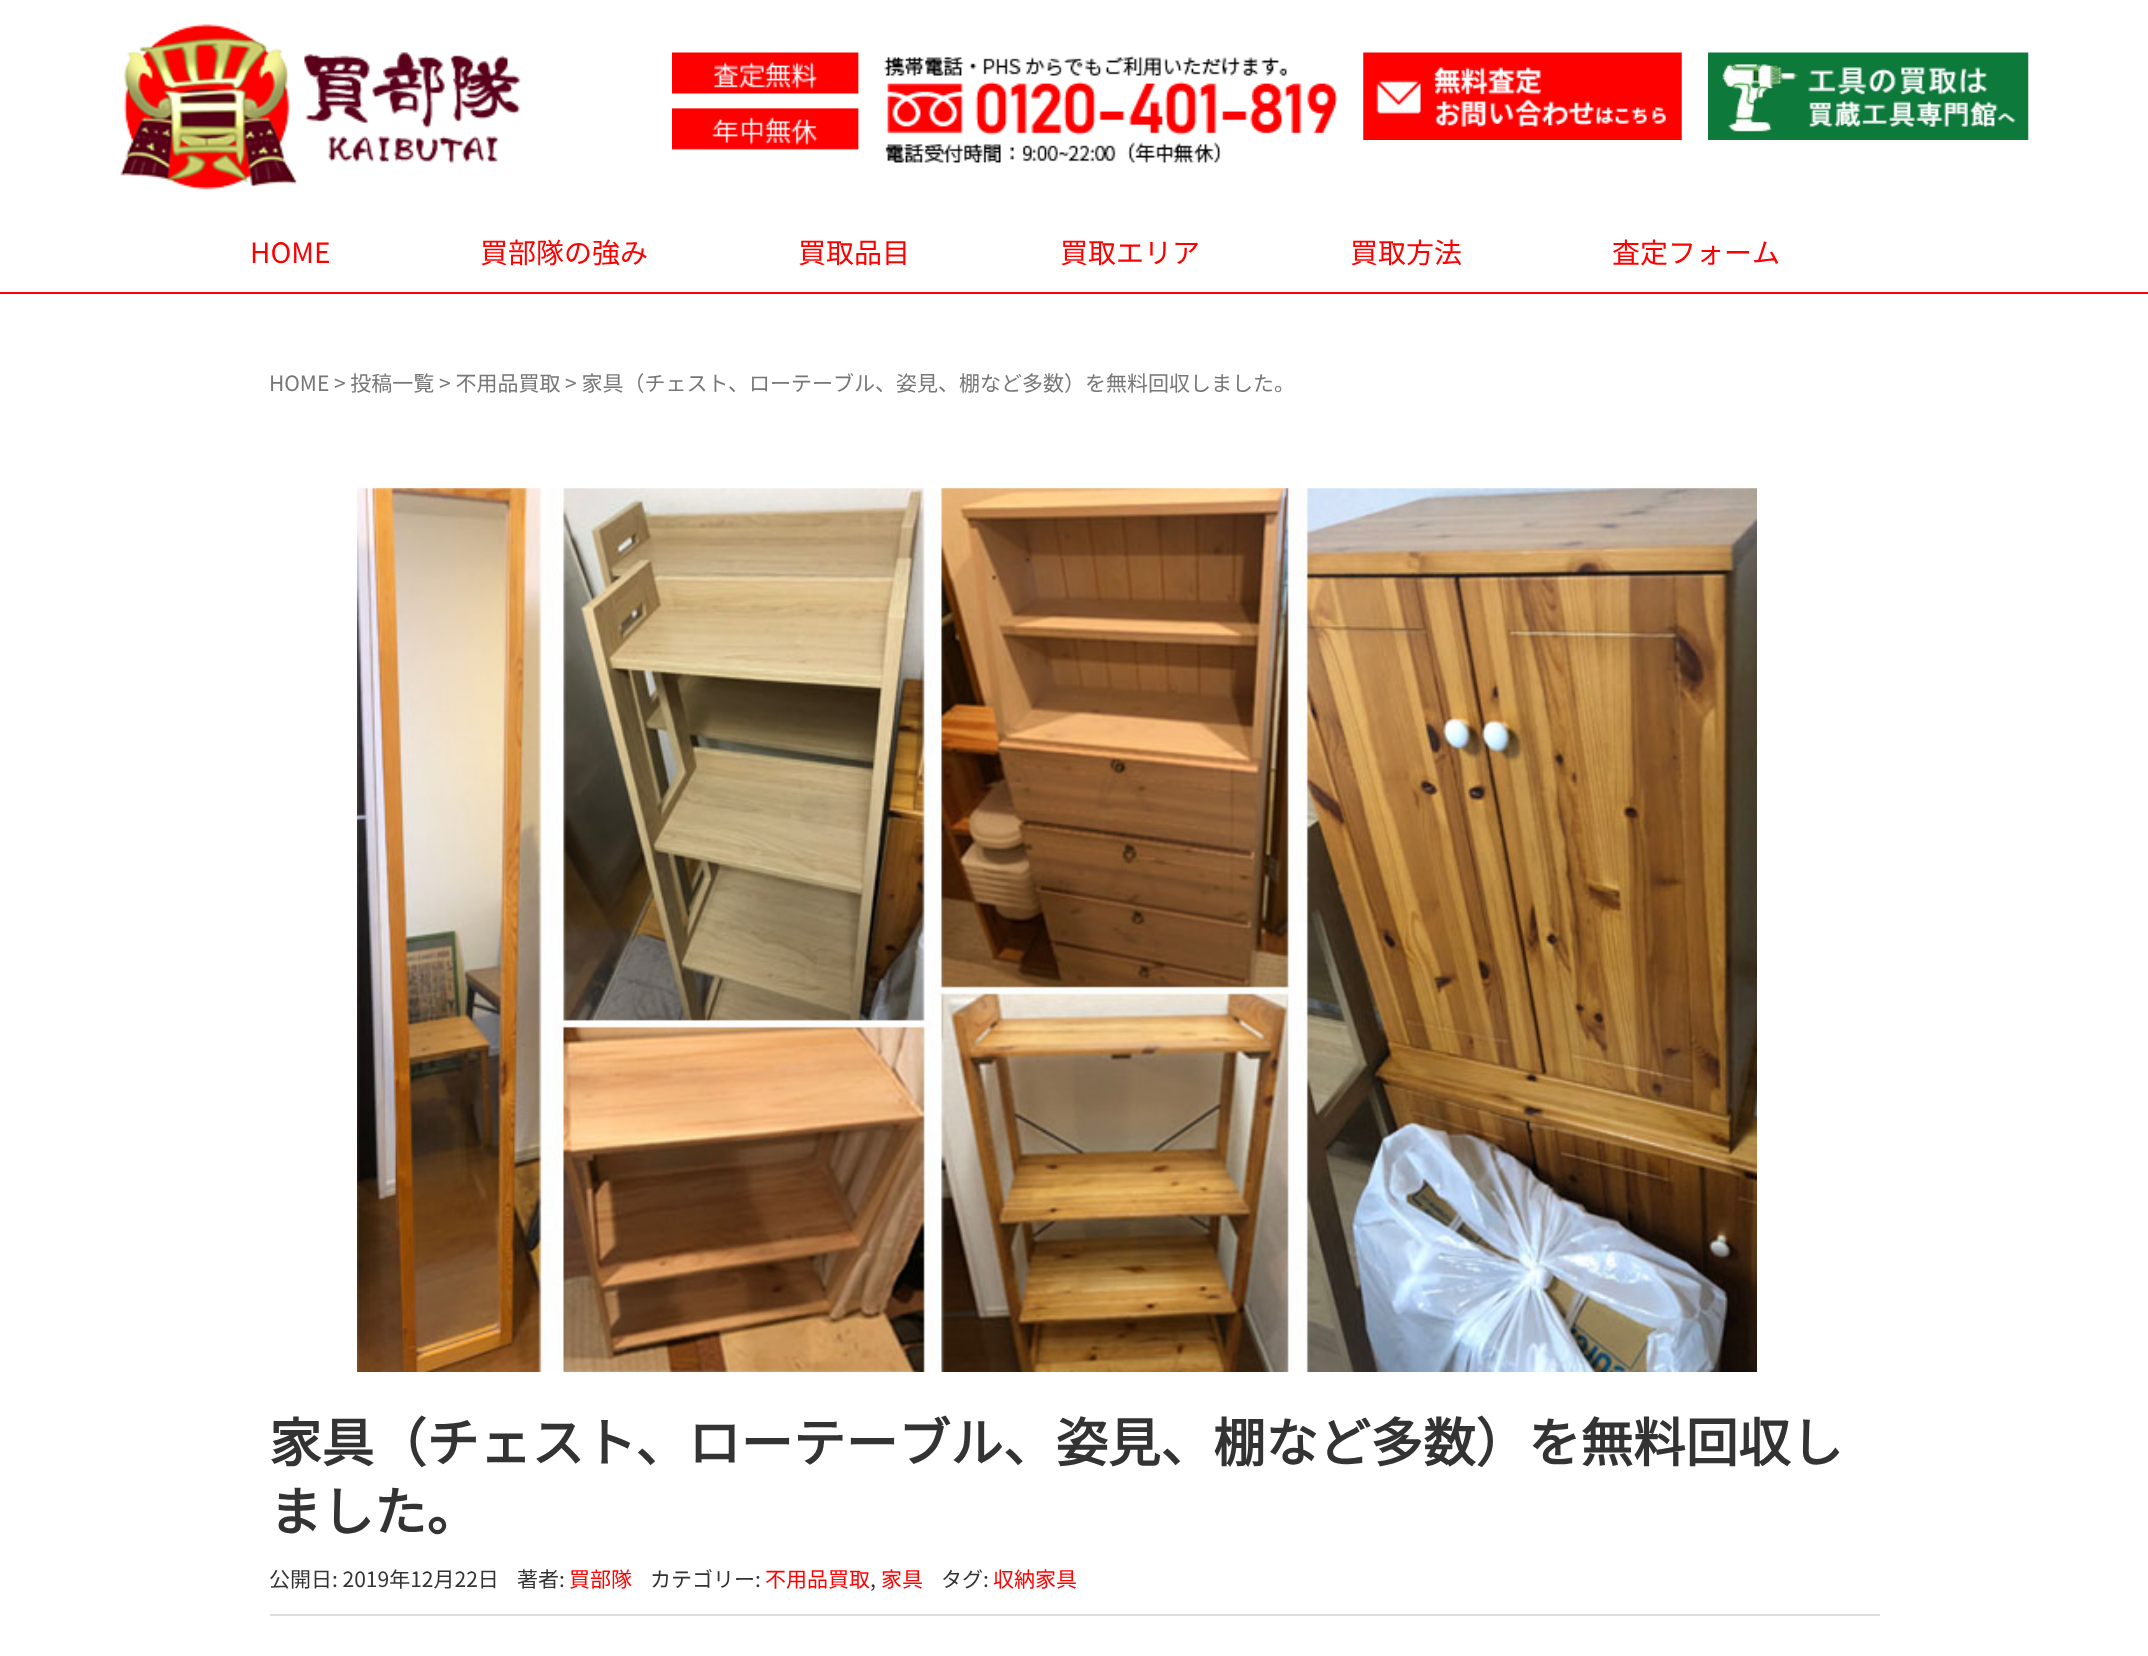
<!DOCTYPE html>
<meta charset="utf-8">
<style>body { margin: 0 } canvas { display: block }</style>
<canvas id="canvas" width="2148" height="1656"></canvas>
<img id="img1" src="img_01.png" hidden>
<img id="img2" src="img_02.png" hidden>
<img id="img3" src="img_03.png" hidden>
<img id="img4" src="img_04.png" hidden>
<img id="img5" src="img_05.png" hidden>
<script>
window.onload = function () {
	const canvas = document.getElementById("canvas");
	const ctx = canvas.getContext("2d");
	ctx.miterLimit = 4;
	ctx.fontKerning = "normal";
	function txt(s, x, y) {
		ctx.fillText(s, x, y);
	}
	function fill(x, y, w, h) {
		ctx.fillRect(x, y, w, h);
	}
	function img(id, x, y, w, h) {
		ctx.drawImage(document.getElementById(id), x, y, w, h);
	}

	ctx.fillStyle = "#FFFFFF";
	fill(0, 0, 2148, 1656);
	img("img1", 120, 24, 401, 166);
	img("img2", 672, 52, 665, 111);
	img("img3", 1363, 52, 319, 88);
	img("img4", 1708, 52, 321, 88);
	ctx.fillStyle = "#FF0000";
	fill(0, 292, 2148, 2);
	img("img5", 357, 488, 1400, 884);
	ctx.fillStyle = "#DDDDDD";
	fill(270, 1614, 1610, 2);
	ctx.font = "100 28px Noto Sans JP";
	ctx.fillStyle = "#FF0000";
	txt("HOME", 250, 263);
	txt("買部隊の強み", 480, 263);
	txt("買取品目", 798, 263);
	txt("買取エリア", 1060, 263);
	txt("買取方法", 1350, 263);
	txt("査定フォーム", 1612, 263);
	ctx.font = "100 21px Noto Sans JP";
	ctx.fillStyle = "#777777";
	txt("HOME > 投稿一覧 > 不用品買取 > 家具（チェスト、ローテーブル、姿見、棚など多数）を無料回収しました。", 269, 391);
	ctx.font = "bold 52.5px Noto Sans JP";
	ctx.fillStyle = "#333333";
	txt("家具（チェスト、ローテーブル、姿見、棚など多数）を無料回収し", 269, 1462);
	txt("ました。", 269, 1531);
	ctx.font = "100 21px Noto Sans JP";
	txt("公開日: 2019年12月22日", 269, 1587);
	txt("著者:", 517, 1587);
	ctx.fillStyle = "#FF0000";
	txt("買部隊", 569, 1587);
	ctx.fillStyle = "#333333";
	txt("カテゴリー:", 650, 1587);
	ctx.fillStyle = "#FF0000";
	txt("不用品買取", 765, 1587);
	ctx.fillStyle = "#333333";
	txt(",", 870, 1587);
	ctx.fillStyle = "#FF0000";
	txt("家具", 881, 1587);
	ctx.fillStyle = "#333333";
	txt("タグ:", 941, 1587);
	ctx.fillStyle = "#FF0000";
	txt("収納家具", 993, 1587);
};
</script>
